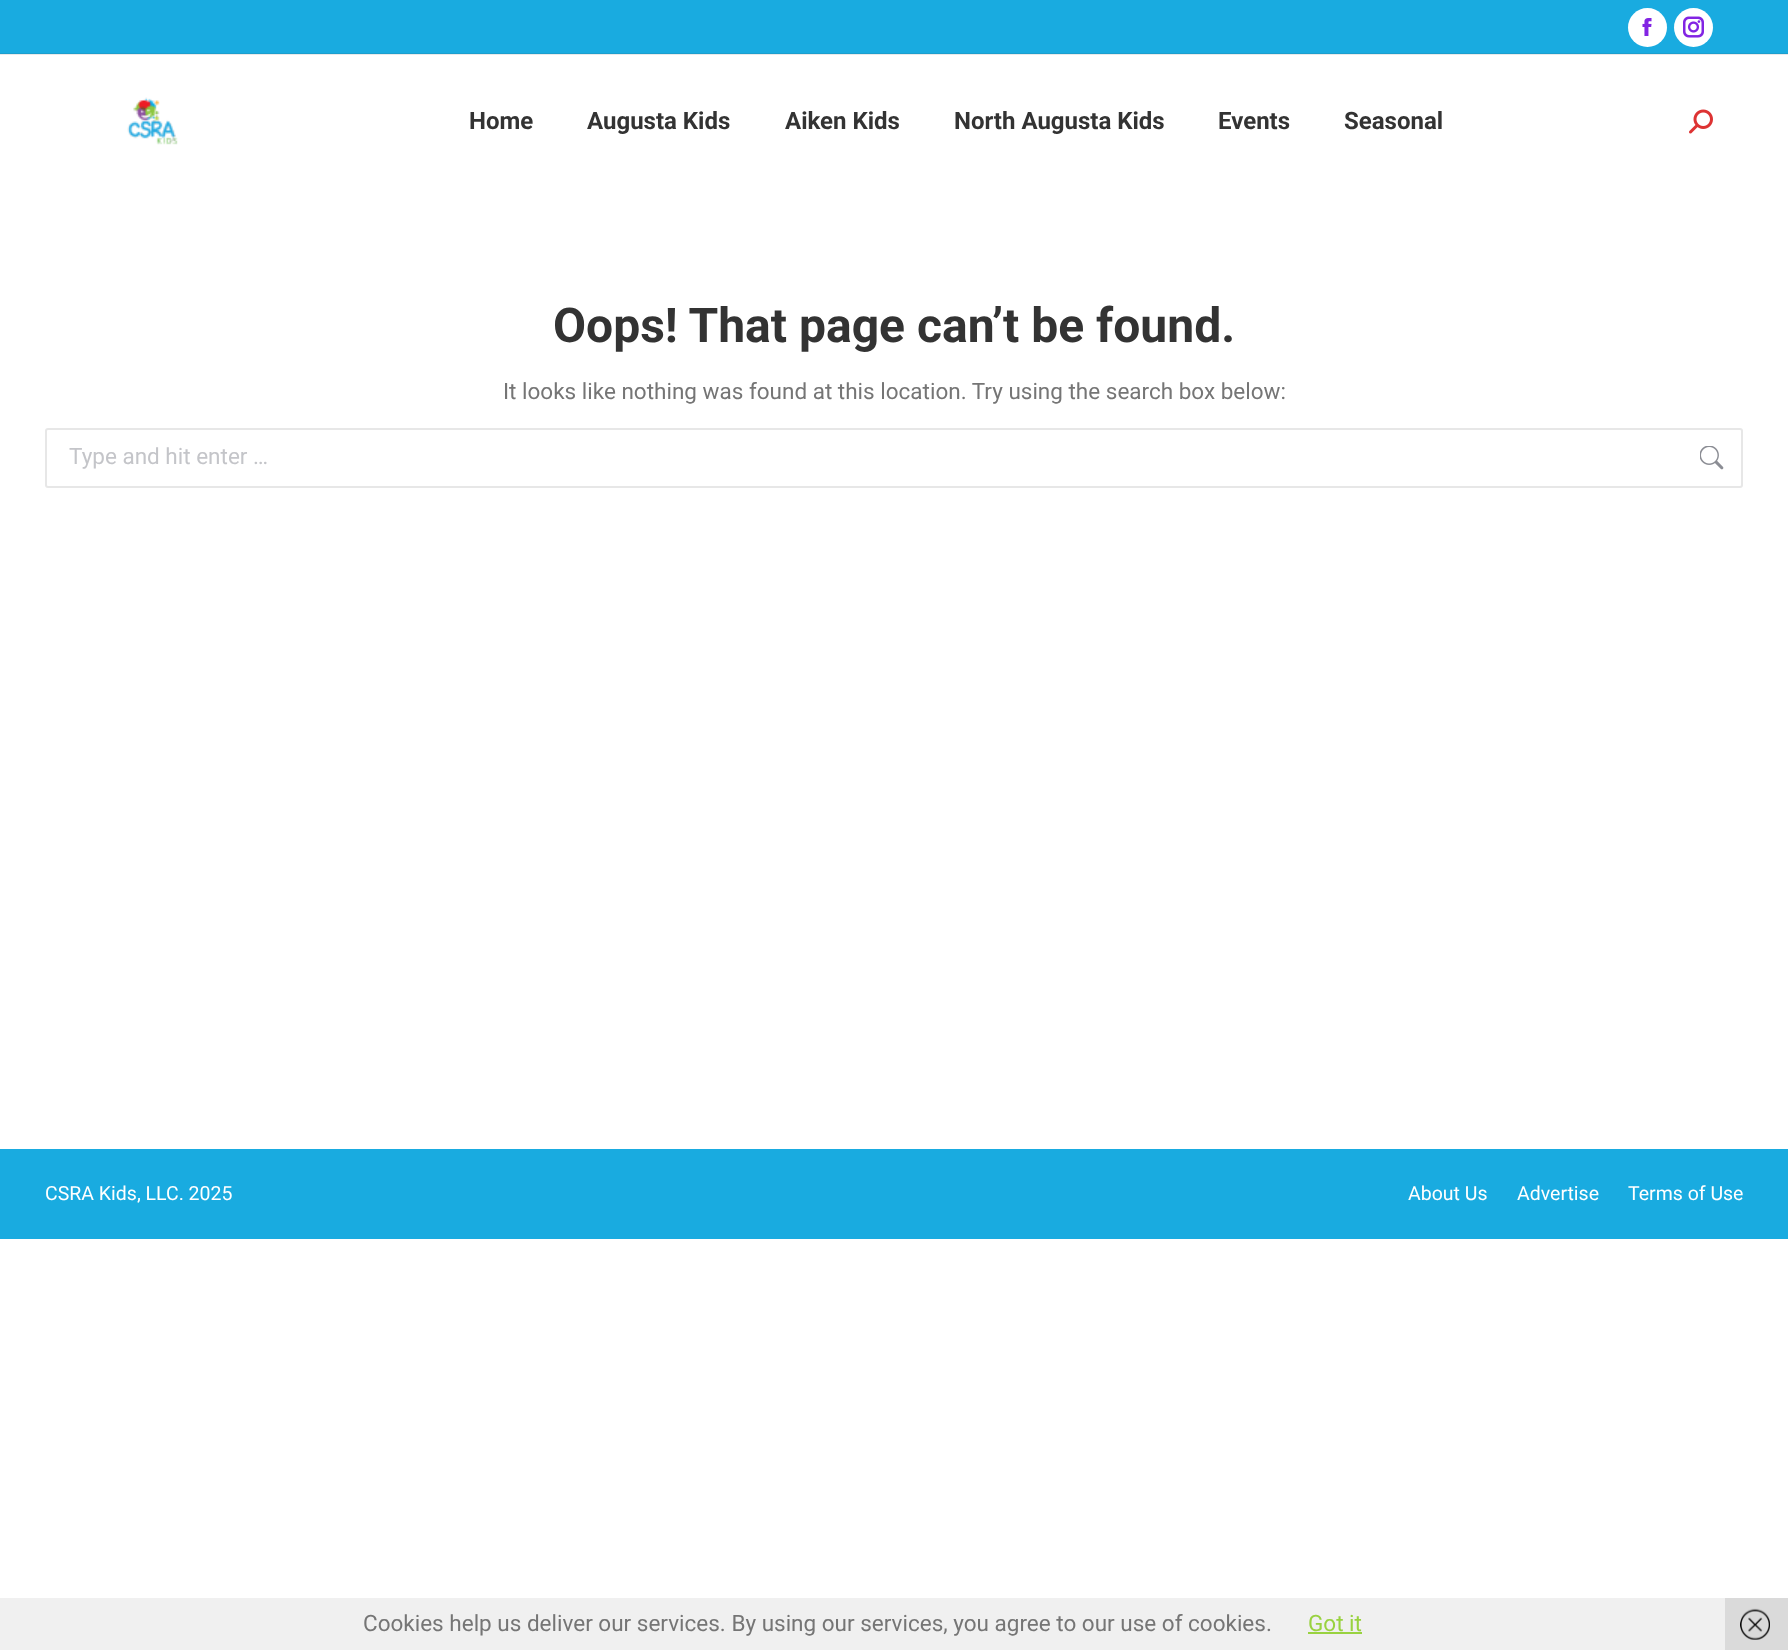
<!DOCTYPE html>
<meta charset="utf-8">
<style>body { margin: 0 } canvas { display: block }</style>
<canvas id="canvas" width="1788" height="1650"></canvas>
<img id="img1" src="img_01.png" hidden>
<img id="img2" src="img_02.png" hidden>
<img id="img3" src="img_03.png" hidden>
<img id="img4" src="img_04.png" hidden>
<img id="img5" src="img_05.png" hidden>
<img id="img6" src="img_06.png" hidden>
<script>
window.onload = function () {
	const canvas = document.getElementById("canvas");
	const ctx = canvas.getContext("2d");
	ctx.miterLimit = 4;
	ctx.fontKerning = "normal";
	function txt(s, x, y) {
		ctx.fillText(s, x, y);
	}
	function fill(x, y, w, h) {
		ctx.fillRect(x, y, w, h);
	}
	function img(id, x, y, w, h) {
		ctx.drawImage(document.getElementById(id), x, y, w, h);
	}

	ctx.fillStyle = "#FFFFFF";
	fill(0, 0, 1788, 1650);
	ctx.fillStyle = "#E9E9E9";
	fill(0, 54, 1788, 1);
	ctx.fillStyle = "#19ABE0";
	fill(0, 0, 1788, 53);
	ctx.fillStyle = "#1C9ECD";
	fill(0, 53, 1788, 1);
	ctx.fillStyle = "#FFFFFF";
	ctx.beginPath();
	ctx.arc(1647.5, 27.5, 19.5, 0, Math.PI * 2);
	ctx.fill();
	img("img1", 1642, 18, 10, 18);
	ctx.beginPath();
	ctx.arc(1693.5, 27.5, 19.5, 0, Math.PI * 2);
	ctx.fill();
	img("img2", 1683, 16, 21, 22);
	img("img3", 127, 97, 51, 48);
	img("img4", 1689, 109, 24, 25);
	ctx.beginPath();
	ctx.roundRect(46, 429, 1696, 58, 2);
	ctx.strokeStyle = "#E7E7E7";
	ctx.lineWidth = 2;
	ctx.stroke();
	img("img5", 1700, 446, 24, 24);
	ctx.fillStyle = "#19ABE0";
	fill(0, 1149, 1788, 90);
	ctx.fillStyle = "#F0F0F0";
	fill(0, 1598, 1725, 52);
	ctx.fillStyle = "#99D240";
	fill(1308, 1632, 54, 2);
	ctx.fillStyle = "#DADADA";
	fill(1725, 1598, 63, 52);
	img("img6", 1740, 1608, 30, 32);
	ctx.font = "bold 24px Roboto";
	ctx.fillStyle = "#333333";
	txt("Home", 469, 129);
	txt("Augusta Kids", 587, 129);
	txt("Aiken Kids", 785, 129);
	txt("North Augusta Kids", 954, 129);
	txt("Events", 1218, 129);
	txt("Seasonal", 1344, 129);
	ctx.font = "bold 48px Roboto";
	txt("Oops! That page can’t be found.", 553, 342);
	ctx.font = "22.5px Roboto";
	ctx.fillStyle = "#757575";
	txt("It looks like nothing was found at this location. Try using the search box below:", 503, 399);
	ctx.fillStyle = "#C4C5C9";
	txt("Type and hit enter …", 69, 464);
	ctx.font = "19.5px Roboto";
	ctx.fillStyle = "#FFFFFF";
	txt("CSRA Kids, LLC. 2025", 45, 1200);
	txt("About Us", 1408, 1200);
	txt("Advertise", 1517, 1200);
	txt("Terms of Use", 1628, 1200);
	ctx.font = "22.5px Roboto";
	ctx.fillStyle = "#757575";
	txt("Cookies help us deliver our services. By using our services, you agree to our use of cookies.", 363, 1631);
	ctx.fillStyle = "#99D240";
	txt("Got it", 1308, 1631);
};
</script>
